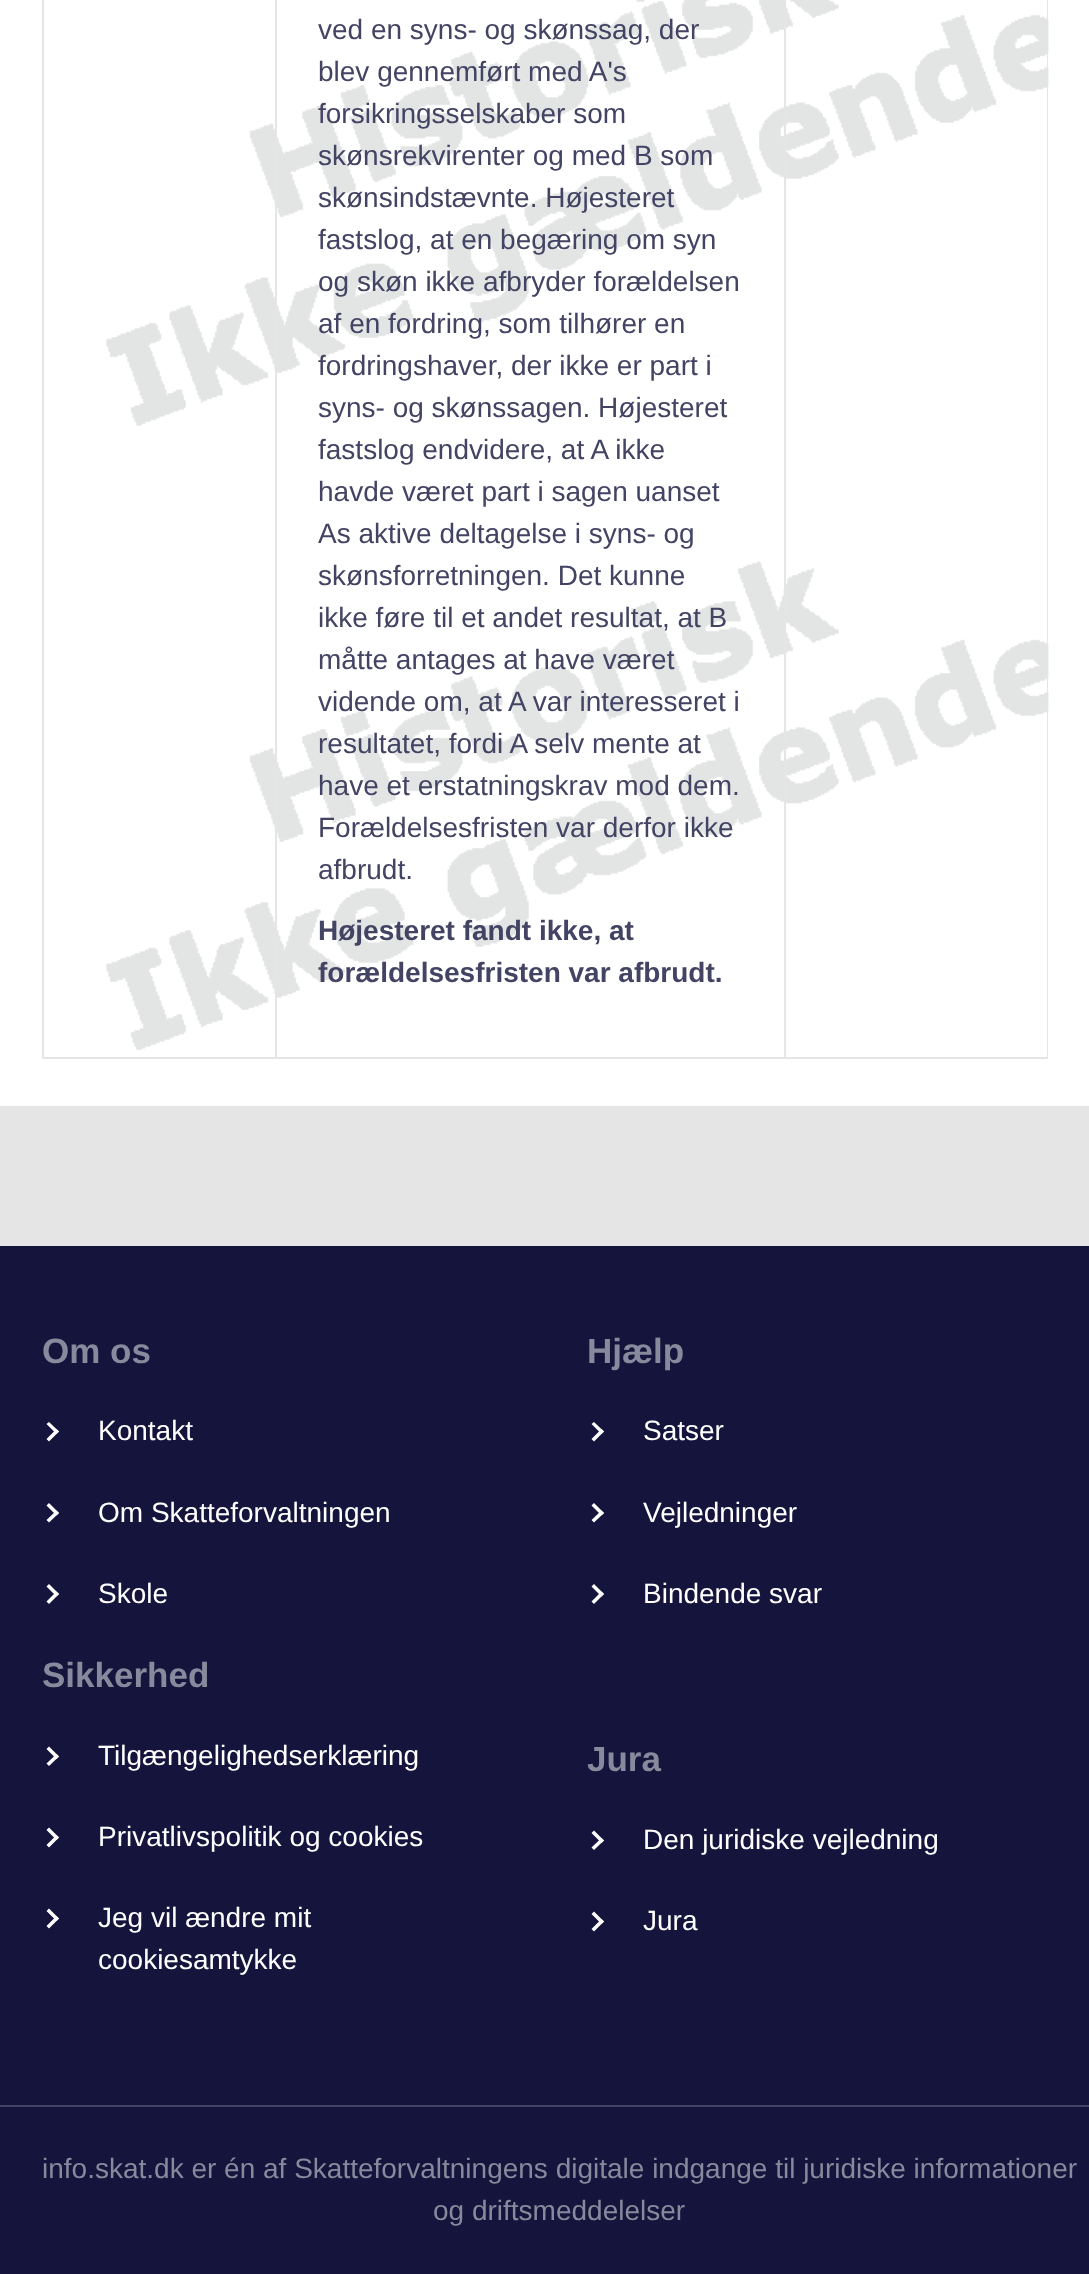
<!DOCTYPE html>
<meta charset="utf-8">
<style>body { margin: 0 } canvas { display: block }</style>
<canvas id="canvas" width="1089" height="2274"></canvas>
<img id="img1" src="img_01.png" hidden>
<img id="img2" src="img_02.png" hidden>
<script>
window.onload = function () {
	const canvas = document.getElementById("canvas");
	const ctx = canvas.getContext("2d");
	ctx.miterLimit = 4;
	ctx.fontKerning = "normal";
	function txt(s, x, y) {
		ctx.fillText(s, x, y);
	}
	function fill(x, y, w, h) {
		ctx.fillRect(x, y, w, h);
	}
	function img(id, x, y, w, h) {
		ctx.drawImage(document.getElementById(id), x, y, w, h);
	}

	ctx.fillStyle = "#E5E5E5";
	fill(0, 0, 1089, 2274);
	ctx.fillStyle = "#FFFFFF";
	fill(0, 0, 1089, 1106);
	img("img1", 106, 0, 943, 1050);
	img("img2", 106, 0, 943, 1050);
	ctx.fillStyle = "#E5E5E5";
	fill(1047, 0, 1, 1059);
	fill(784, 1057, 264, 2);
	fill(784, 0, 2, 1059);
	fill(275, 1057, 511, 2);
	fill(275, 0, 2, 1059);
	fill(42, 1057, 235, 2);
	fill(42, 0, 2, 1059);
	ctx.fillStyle = "#14143C";
	fill(0, 1246, 1089, 1028);
	ctx.fillStyle = "#FFFFFF";
	ctx.beginPath();
	ctx.moveTo(49, 1422);
	ctx.lineTo(59, 1431.5);
	ctx.lineTo(56.5, 1434);
	ctx.lineTo(46.5, 1424);
	ctx.closePath();
	ctx.fill();
	ctx.beginPath();
	ctx.moveTo(56.5, 1429);
	ctx.lineTo(59, 1431.5);
	ctx.lineTo(49, 1441.5);
	ctx.lineTo(46.5, 1439);
	ctx.closePath();
	ctx.fill();
	ctx.beginPath();
	ctx.moveTo(49, 1503);
	ctx.lineTo(59, 1513);
	ctx.lineTo(56.5, 1515.5);
	ctx.lineTo(46.5, 1505.5);
	ctx.closePath();
	ctx.fill();
	ctx.beginPath();
	ctx.moveTo(56.5, 1510.5);
	ctx.lineTo(59, 1513);
	ctx.lineTo(49, 1522.5);
	ctx.lineTo(46.5, 1520);
	ctx.closePath();
	ctx.fill();
	ctx.beginPath();
	ctx.moveTo(49, 1584);
	ctx.lineTo(59, 1594);
	ctx.lineTo(56.5, 1596.5);
	ctx.lineTo(46.5, 1586.5);
	ctx.closePath();
	ctx.fill();
	ctx.beginPath();
	ctx.moveTo(56.5, 1591.5);
	ctx.lineTo(59, 1594);
	ctx.lineTo(49, 1604);
	ctx.lineTo(46.5, 1601.5);
	ctx.closePath();
	ctx.fill();
	ctx.beginPath();
	ctx.moveTo(594, 1422);
	ctx.lineTo(604, 1431.5);
	ctx.lineTo(601.5, 1434);
	ctx.lineTo(591.5, 1424);
	ctx.closePath();
	ctx.fill();
	ctx.beginPath();
	ctx.moveTo(601.5, 1429);
	ctx.lineTo(604, 1431.5);
	ctx.lineTo(594, 1441.5);
	ctx.lineTo(591.5, 1439);
	ctx.closePath();
	ctx.fill();
	ctx.beginPath();
	ctx.moveTo(594, 1503);
	ctx.lineTo(604, 1513);
	ctx.lineTo(601.5, 1515.5);
	ctx.lineTo(591.5, 1505.5);
	ctx.closePath();
	ctx.fill();
	ctx.beginPath();
	ctx.moveTo(601.5, 1510.5);
	ctx.lineTo(604, 1513);
	ctx.lineTo(594, 1522.5);
	ctx.lineTo(591.5, 1520);
	ctx.closePath();
	ctx.fill();
	ctx.beginPath();
	ctx.moveTo(594, 1584);
	ctx.lineTo(604, 1594);
	ctx.lineTo(601.5, 1596.5);
	ctx.lineTo(591.5, 1586.5);
	ctx.closePath();
	ctx.fill();
	ctx.beginPath();
	ctx.moveTo(601.5, 1591.5);
	ctx.lineTo(604, 1594);
	ctx.lineTo(594, 1604);
	ctx.lineTo(591.5, 1601.5);
	ctx.closePath();
	ctx.fill();
	ctx.beginPath();
	ctx.moveTo(49, 1746.5);
	ctx.lineTo(59, 1756.5);
	ctx.lineTo(56.5, 1759);
	ctx.lineTo(46.5, 1749);
	ctx.closePath();
	ctx.fill();
	ctx.beginPath();
	ctx.moveTo(56.5, 1754);
	ctx.lineTo(59, 1756.5);
	ctx.lineTo(49, 1766);
	ctx.lineTo(46.5, 1763.5);
	ctx.closePath();
	ctx.fill();
	ctx.beginPath();
	ctx.moveTo(49, 1827.5);
	ctx.lineTo(59, 1837.5);
	ctx.lineTo(56.5, 1840);
	ctx.lineTo(46.5, 1830);
	ctx.closePath();
	ctx.fill();
	ctx.beginPath();
	ctx.moveTo(56.5, 1835);
	ctx.lineTo(59, 1837.5);
	ctx.lineTo(49, 1847.5);
	ctx.lineTo(46.5, 1845);
	ctx.closePath();
	ctx.fill();
	ctx.beginPath();
	ctx.moveTo(49, 1908.5);
	ctx.lineTo(59, 1918.5);
	ctx.lineTo(56.5, 1921);
	ctx.lineTo(46.5, 1911);
	ctx.closePath();
	ctx.fill();
	ctx.beginPath();
	ctx.moveTo(56.5, 1916);
	ctx.lineTo(59, 1918.5);
	ctx.lineTo(49, 1928.5);
	ctx.lineTo(46.5, 1926);
	ctx.closePath();
	ctx.fill();
	ctx.beginPath();
	ctx.moveTo(594, 1830.5);
	ctx.lineTo(604, 1840.5);
	ctx.lineTo(601.5, 1843);
	ctx.lineTo(591.5, 1833);
	ctx.closePath();
	ctx.fill();
	ctx.beginPath();
	ctx.moveTo(601.5, 1838);
	ctx.lineTo(604, 1840.5);
	ctx.lineTo(594, 1850);
	ctx.lineTo(591.5, 1847.5);
	ctx.closePath();
	ctx.fill();
	ctx.beginPath();
	ctx.moveTo(594, 1911.5);
	ctx.lineTo(604, 1921.5);
	ctx.lineTo(601.5, 1924);
	ctx.lineTo(591.5, 1914);
	ctx.closePath();
	ctx.fill();
	ctx.beginPath();
	ctx.moveTo(601.5, 1919);
	ctx.lineTo(604, 1921.5);
	ctx.lineTo(594, 1931.5);
	ctx.lineTo(591.5, 1929);
	ctx.closePath();
	ctx.fill();
	ctx.fillStyle = "#434363";
	fill(0, 2105, 1089, 2);
	ctx.font = "28px Liberation Sans";
	txt("ved en syns- og skønssag, der", 318, 39);
	txt("blev gennemført med A's", 318, 81);
	txt("forsikringsselskaber som", 318, 123);
	txt("skønsrekvirenter og med B som", 318, 165);
	txt("skønsindstævnte. Højesteret", 318, 207);
	txt("fastslog, at en begæring om syn", 318, 249);
	txt("og skøn ikke afbryder forældelsen", 318, 291);
	txt("af en fordring, som tilhører en", 318, 333);
	txt("fordringshaver, der ikke er part i", 318, 375);
	txt("syns- og skønssagen. Højesteret", 318, 417);
	txt("fastslog endvidere, at A ikke", 318, 459);
	txt("havde været part i sagen uanset", 318, 501);
	txt("As aktive deltagelse i syns- og", 318, 543);
	txt("skønsforretningen. Det kunne", 318, 585);
	txt("ikke føre til et andet resultat, at B", 318, 627);
	txt("måtte antages at have været", 318, 669);
	txt("vidende om, at A var interesseret i", 318, 711);
	txt("resultatet, fordi A selv mente at", 318, 753);
	txt("have et erstatningskrav mod dem.", 318, 795);
	txt("Forældelsesfristen var derfor ikke", 318, 837);
	txt("afbrudt.", 318, 879);
	ctx.font = "bold 28px Liberation Sans";
	txt("Højesteret fandt ikke, at", 318, 940);
	txt("forældelsesfristen var afbrudt.", 318, 982);
	ctx.font = "bold 35px Liberation Sans";
	ctx.fillStyle = "#89899D";
	txt("Om os", 42, 1363);
	ctx.font = "28px Liberation Sans";
	ctx.fillStyle = "#FFFFFF";
	txt("Kontakt", 98, 1440);
	txt("Om Skatteforvaltningen", 98, 1522);
	txt("Skole", 98, 1603);
	ctx.font = "bold 35px Liberation Sans";
	ctx.fillStyle = "#89899D";
	txt("Hjælp", 587, 1363);
	ctx.font = "28px Liberation Sans";
	ctx.fillStyle = "#FFFFFF";
	txt("Satser", 643, 1440);
	txt("Vejledninger", 643, 1522);
	txt("Bindende svar", 643, 1603);
	ctx.font = "bold 35px Liberation Sans";
	ctx.fillStyle = "#89899D";
	txt("Sikkerhed", 42, 1687);
	ctx.font = "28px Liberation Sans";
	ctx.fillStyle = "#FFFFFF";
	txt("Tilgængelighedserklæring", 98, 1765);
	txt("Privatlivspolitik og cookies", 98, 1846);
	txt("Jeg vil ændre mit", 98, 1927);
	txt("cookiesamtykke", 98, 1969);
	ctx.font = "bold 35px Liberation Sans";
	ctx.fillStyle = "#89899D";
	txt("Jura", 587, 1771);
	ctx.font = "28px Liberation Sans";
	ctx.fillStyle = "#FFFFFF";
	txt("Den juridiske vejledning", 643, 1849);
	txt("Jura", 643, 1930);
	ctx.fillStyle = "#89899D";
	txt("info.skat.dk er én af Skatteforvaltningens digitale indgange til juridiske informationer", 42, 2178);
	txt("og driftsmeddelelser", 433, 2220);
};
</script>
